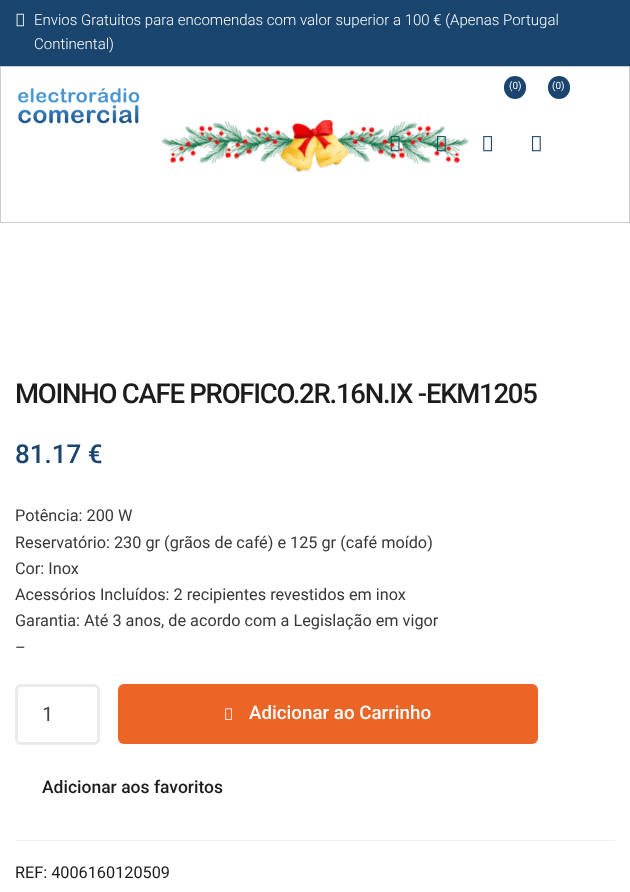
<!DOCTYPE html>
<meta charset="utf-8">
<style>body { margin: 0 } canvas { display: block }</style>
<canvas id="canvas" width="630" height="892"></canvas>
<img id="img1" src="img_01.png" hidden>
<img id="img2" src="img_02.png" hidden>
<img id="img3" src="img_03.png" hidden>
<img id="img4" src="img_04.png" hidden>
<img id="img5" src="img_05.png" hidden>
<img id="img6" src="img_06.png" hidden>
<img id="img7" src="img_07.png" hidden>
<script>
window.onload = function () {
	const canvas = document.getElementById("canvas");
	const ctx = canvas.getContext("2d");
	ctx.miterLimit = 4;
	ctx.fontKerning = "normal";
	function txt(s, x, y) {
		ctx.fillText(s, x, y);
	}
	function fill(x, y, w, h) {
		ctx.fillRect(x, y, w, h);
	}
	function round(x, y, w, h, r) {
		ctx.beginPath();
		ctx.roundRect(x, y, w, h, r);
		ctx.fill();
	}
	function img(id, x, y, w, h) {
		ctx.drawImage(document.getElementById(id), x, y, w, h);
	}

	ctx.fillStyle = "#FFFFFF";
	fill(0, 0, 630, 892);
	ctx.fillStyle = "#1A456F";
	fill(0, 0, 630, 66);
	img("img1", 16, 13, 8, 14);
	ctx.strokeStyle = "#CCCCCC";
	ctx.strokeRect(0.5, 66.5, 629, 156);
	img("img2", 17, 87, 123, 37);
	round(504, 76, 22, 23, 11);
	img("img3", 483, 136, 9, 16);
	round(548, 76, 22, 23, 11);
	img("img4", 532, 136, 9, 16);
	img("img5", 390, 136, 10, 16);
	img("img4", 437, 136, 9, 16);
	img("img6", 161, 120, 308, 53);
	ctx.beginPath();
	ctx.roundRect(16.5, 685.5, 82, 58, 4.5);
	ctx.strokeStyle = "#EBEBEB";
	ctx.lineWidth = 3;
	ctx.stroke();
	ctx.fillStyle = "#EB6626";
	round(118, 684, 420, 60, 6);
	img("img7", 225, 708, 7, 12);
	ctx.fillStyle = "#F2F2F2";
	fill(15, 840, 600, 1);
	ctx.font = "300 15px Roboto";
	ctx.fillStyle = "#FFFFFF";
	txt("Envios Gratuitos para encomendas com valor superior a 100 € (Apenas Portugal", 34, 25);
	txt("Continental)", 34, 49);
	ctx.font = "10px Roboto";
	txt("(0)", 509, 89);
	txt("(0)", 552, 89);
	ctx.letterSpacing = "-1.25px";
	ctx.font = "500 27.5px Roboto";
	ctx.fillStyle = "#1C1C1C";
	txt("MOINHO CAFE PROFICO.2R.16N.IX -EKM1205", 15, 403);
	ctx.letterSpacing = "0px";
	ctx.font = "500 26px Roboto";
	ctx.fillStyle = "#1A456F";
	txt("81.17 €", 15, 463);
	ctx.font = "16.25px Roboto";
	ctx.fillStyle = "#383838";
	txt("Potência: 200 W", 15, 521);
	txt("Reservatório: 230 gr (grãos de café) e 125 gr (café moído)", 15, 548);
	txt("Cor: Inox", 15, 574);
	txt("Acessórios Incluídos: 2 recipientes revestidos em inox", 15, 600);
	txt("Garantia: Até 3 anos, de acordo com a Legislação em vigor", 15, 626);
	txt("–", 15, 653);
	ctx.font = "20px Roboto";
	ctx.fillStyle = "#43454B";
	txt("1", 42, 721);
	ctx.font = "500 18.75px Roboto";
	ctx.fillStyle = "#FFFFFF";
	txt("Adicionar ao Carrinho", 249, 719);
	ctx.font = "500 17.5px Roboto";
	ctx.fillStyle = "#1C1C1C";
	txt("Adicionar aos favoritos", 42, 793);
	ctx.font = "16.25px Roboto";
	txt("REF: 4006160120509", 15, 878);
};
</script>
